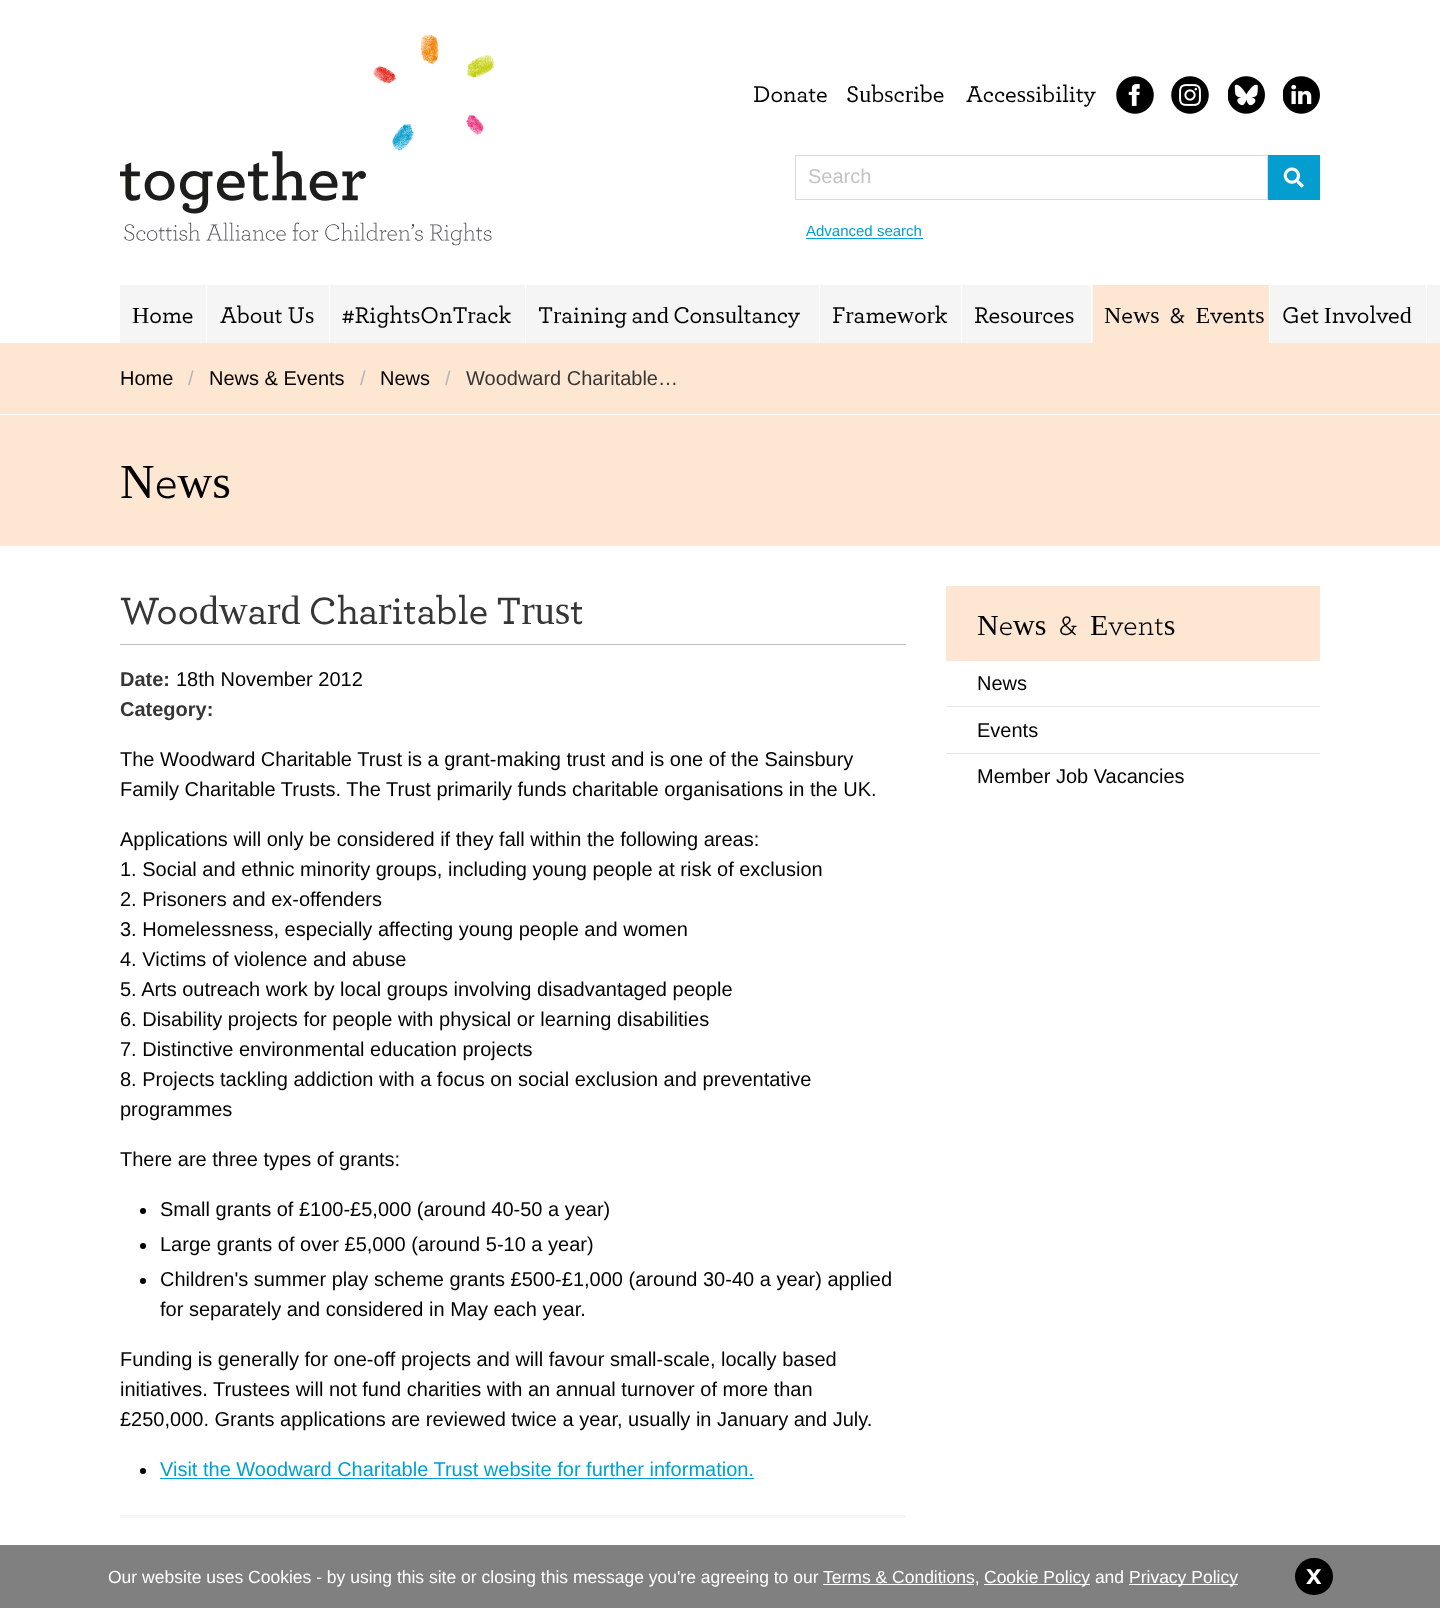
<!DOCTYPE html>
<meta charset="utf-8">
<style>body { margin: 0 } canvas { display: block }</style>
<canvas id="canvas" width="1440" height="1608"></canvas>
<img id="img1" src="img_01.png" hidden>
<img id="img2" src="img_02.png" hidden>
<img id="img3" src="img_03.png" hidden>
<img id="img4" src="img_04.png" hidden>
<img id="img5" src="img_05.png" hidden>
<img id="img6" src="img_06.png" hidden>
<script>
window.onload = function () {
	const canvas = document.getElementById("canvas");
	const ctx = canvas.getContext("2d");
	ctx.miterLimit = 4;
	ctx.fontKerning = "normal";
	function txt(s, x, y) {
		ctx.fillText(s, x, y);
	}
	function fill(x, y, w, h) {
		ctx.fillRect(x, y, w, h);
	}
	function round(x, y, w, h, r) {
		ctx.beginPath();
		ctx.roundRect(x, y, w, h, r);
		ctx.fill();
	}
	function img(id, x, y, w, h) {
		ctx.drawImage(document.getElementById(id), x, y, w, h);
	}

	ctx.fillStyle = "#FFFFFF";
	fill(0, 0, 1440, 1608);
	img("img1", 120, 34, 374, 212);
	img("img2", 1116, 76, 38, 38);
	img("img3", 1171, 76, 38, 38);
	img("img4", 1228, 76, 37, 38);
	img("img5", 1283, 76, 37, 38);
	ctx.strokeStyle = "#DBDBDB";
	ctx.strokeRect(795.5, 155.5, 472, 44);
	ctx.fillStyle = "#039DD0";
	fill(1268, 155, 52, 45);
	img("img6", 1283, 167, 21, 21);
	ctx.fillStyle = "#009FD5";
	fill(806, 238, 117, 1);
	ctx.fillStyle = "#F5F5F5";
	fill(120, 285, 209, 58);
	ctx.fillStyle = "#FFFFFF";
	fill(206, 285, 1, 58);
	ctx.fillStyle = "#F5F5F5";
	fill(330, 285, 195, 58);
	fill(526, 285, 293, 58);
	fill(820, 285, 273, 58);
	ctx.fillStyle = "#FFFFFF";
	fill(961, 285, 1, 58);
	fill(1091, 285, 1, 58);
	ctx.fillStyle = "#FDE7D2";
	fill(1093, 285, 176, 58);
	ctx.fillStyle = "#F5F5F5";
	fill(1270, 285, 170, 58);
	ctx.fillStyle = "#FFFFFF";
	fill(1426, 285, 1, 58);
	ctx.fillStyle = "#FDE7D2";
	fill(0, 343, 1440, 71);
	fill(0, 415, 1440, 131);
	ctx.fillStyle = "#C0C0C0";
	fill(120, 644, 786, 1);
	ctx.fillStyle = "#000000";
	ctx.beginPath();
	ctx.arc(143, 1211, 3, 0, Math.PI * 2);
	ctx.fill();
	ctx.beginPath();
	ctx.arc(143, 1246, 3, 0, Math.PI * 2);
	ctx.fill();
	ctx.beginPath();
	ctx.arc(143, 1281, 3, 0, Math.PI * 2);
	ctx.fill();
	ctx.beginPath();
	ctx.arc(143, 1471, 3, 0, Math.PI * 2);
	ctx.fill();
	ctx.fillStyle = "#009FD5";
	fill(160, 1478, 594, 1);
	ctx.fillStyle = "#F5F5F5";
	fill(120, 1515, 786, 3);
	ctx.fillStyle = "#FDE7D2";
	fill(946, 586, 374, 75);
	ctx.fillStyle = "#E6E6E6";
	fill(946, 706, 374, 1);
	fill(946, 753, 374, 1);
	ctx.fillStyle = "#808080";
	fill(0, 1545, 1440, 63);
	ctx.fillStyle = "#FFFFFF";
	fill(823, 1584, 151, 1);
	fill(984, 1584, 106, 1);
	fill(1129, 1584, 109, 1);
	ctx.fillStyle = "#000000";
	round(1295, 1558, 38, 37, 18.5);
	ctx.font = "300 24px 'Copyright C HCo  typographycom'";
	txt("Donate", 753, 102);
	txt("Subscribe", 846, 102);
	txt("Accessibility", 966, 102);
	ctx.font = "20px Liberation Sans";
	ctx.fillStyle = "#C3C3C3";
	txt("Search", 808, 183);
	ctx.font = "15px Liberation Sans";
	ctx.fillStyle = "#009FD5";
	txt("Advanced search", 806, 236);
	ctx.font = "300 24px 'Copyright C HCo  typographycom'";
	ctx.fillStyle = "#000000";
	txt("Home", 132, 323);
	txt("About Us", 220, 323);
	txt("#RightsOnTrack", 342, 323);
	ctx.wordSpacing = "-1px";
	txt("Training and Consultancy", 538, 323);
	ctx.wordSpacing = "0px";
	txt("Framework", 832, 323);
	txt("Resources", 974, 323);
	ctx.wordSpacing = "5px";
	txt("News & Events", 1104, 323);
	ctx.wordSpacing = "-1px";
	txt("Get Involved", 1282, 323);
	ctx.wordSpacing = "0px";
	ctx.font = "20px Liberation Sans";
	txt("Home", 120, 385);
	ctx.fillStyle = "#B5B5B5";
	txt("/", 188, 385);
	ctx.fillStyle = "#000000";
	txt("News & Events", 209, 385);
	ctx.fillStyle = "#B5B5B5";
	txt("/", 360, 385);
	ctx.fillStyle = "#000000";
	txt("News", 380, 385);
	ctx.fillStyle = "#B5B5B5";
	txt("/", 445, 385);
	ctx.fillStyle = "#363636";
	txt("Woodward Charitable…", 466, 385);
	ctx.font = "300 48px 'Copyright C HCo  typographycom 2'";
	ctx.fillStyle = "#000000";
	txt("News", 120, 498);
	ctx.wordSpacing = "-1px";
	ctx.font = "300 40px 'Copyright C HCo  typographycom'";
	ctx.fillStyle = "#363636";
	txt("Woodward Charitable Trust", 120, 624);
	ctx.wordSpacing = "0px";
	ctx.font = "bold 20px Liberation Sans";
	txt("Date:", 120, 686);
	ctx.font = "20px Liberation Sans";
	ctx.fillStyle = "#000000";
	txt("18th November 2012", 176, 686);
	ctx.font = "bold 20px Liberation Sans";
	ctx.fillStyle = "#363636";
	txt("Category:", 120, 716);
	ctx.font = "20px Liberation Sans";
	ctx.fillStyle = "#000000";
	txt("The Woodward Charitable Trust is a grant-making trust and is one of the Sainsbury", 120, 766);
	txt("Family Charitable Trusts. The Trust primarily funds charitable organisations in the UK.", 120, 796);
	txt("Applications will only be considered if they fall within the following areas:", 120, 846);
	txt("1. Social and ethnic minority groups, including young people at risk of exclusion", 120, 876);
	txt("2. Prisoners and ex-offenders", 120, 906);
	txt("3. Homelessness, especially affecting young people and women", 120, 936);
	txt("4. Victims of violence and abuse", 120, 966);
	txt("5. Arts outreach work by local groups involving disadvantaged people", 120, 996);
	txt("6. Disability projects for people with physical or learning disabilities", 120, 1026);
	txt("7. Distinctive environmental education projects", 120, 1056);
	txt("8. Projects tackling addiction with a focus on social exclusion and preventative", 120, 1086);
	txt("programmes", 120, 1116);
	txt("There are three types of grants:", 120, 1166);
	txt("Small grants of £100-£5,000 (around 40-50 a year)", 160, 1216);
	txt("Large grants of over £5,000 (around 5-10 a year)", 160, 1251);
	txt("Children's summer play scheme grants £500-£1,000 (around 30-40 a year) applied", 160, 1286);
	txt("for separately and considered in May each year.", 160, 1316);
	txt("Funding is generally for one-off projects and will favour small-scale, locally based", 120, 1366);
	txt("initiatives. Trustees will not fund charities with an annual turnover of more than", 120, 1396);
	txt("£250,000. Grants applications are reviewed twice a year, usually in January and July.", 120, 1426);
	ctx.fillStyle = "#009FD5";
	txt("Visit the Woodward Charitable Trust website for further information.", 160, 1476);
	ctx.wordSpacing = "6px";
	ctx.font = "300 30px 'Copyright C HCo  typographycom 2'";
	ctx.fillStyle = "#000000";
	txt("News & Events", 977, 635);
	ctx.wordSpacing = "0px";
	ctx.font = "20px Liberation Sans";
	txt("News", 977, 690);
	txt("Events", 977, 737);
	txt("Member Job Vacancies", 977, 783);
	ctx.font = "17.5px Liberation Sans";
	ctx.fillStyle = "#FFFFFF";
	txt("Our website uses Cookies - by using this site or closing this message you're agreeing to our", 108, 1583);
	txt("Terms & Conditions,", 823, 1583);
	txt("Cookie Policy and", 984, 1583);
	txt("Privacy Policy", 1129, 1583);
	ctx.font = "bold 28px Liberation Sans";
	txt("x", 1306, 1584);
};
</script>
